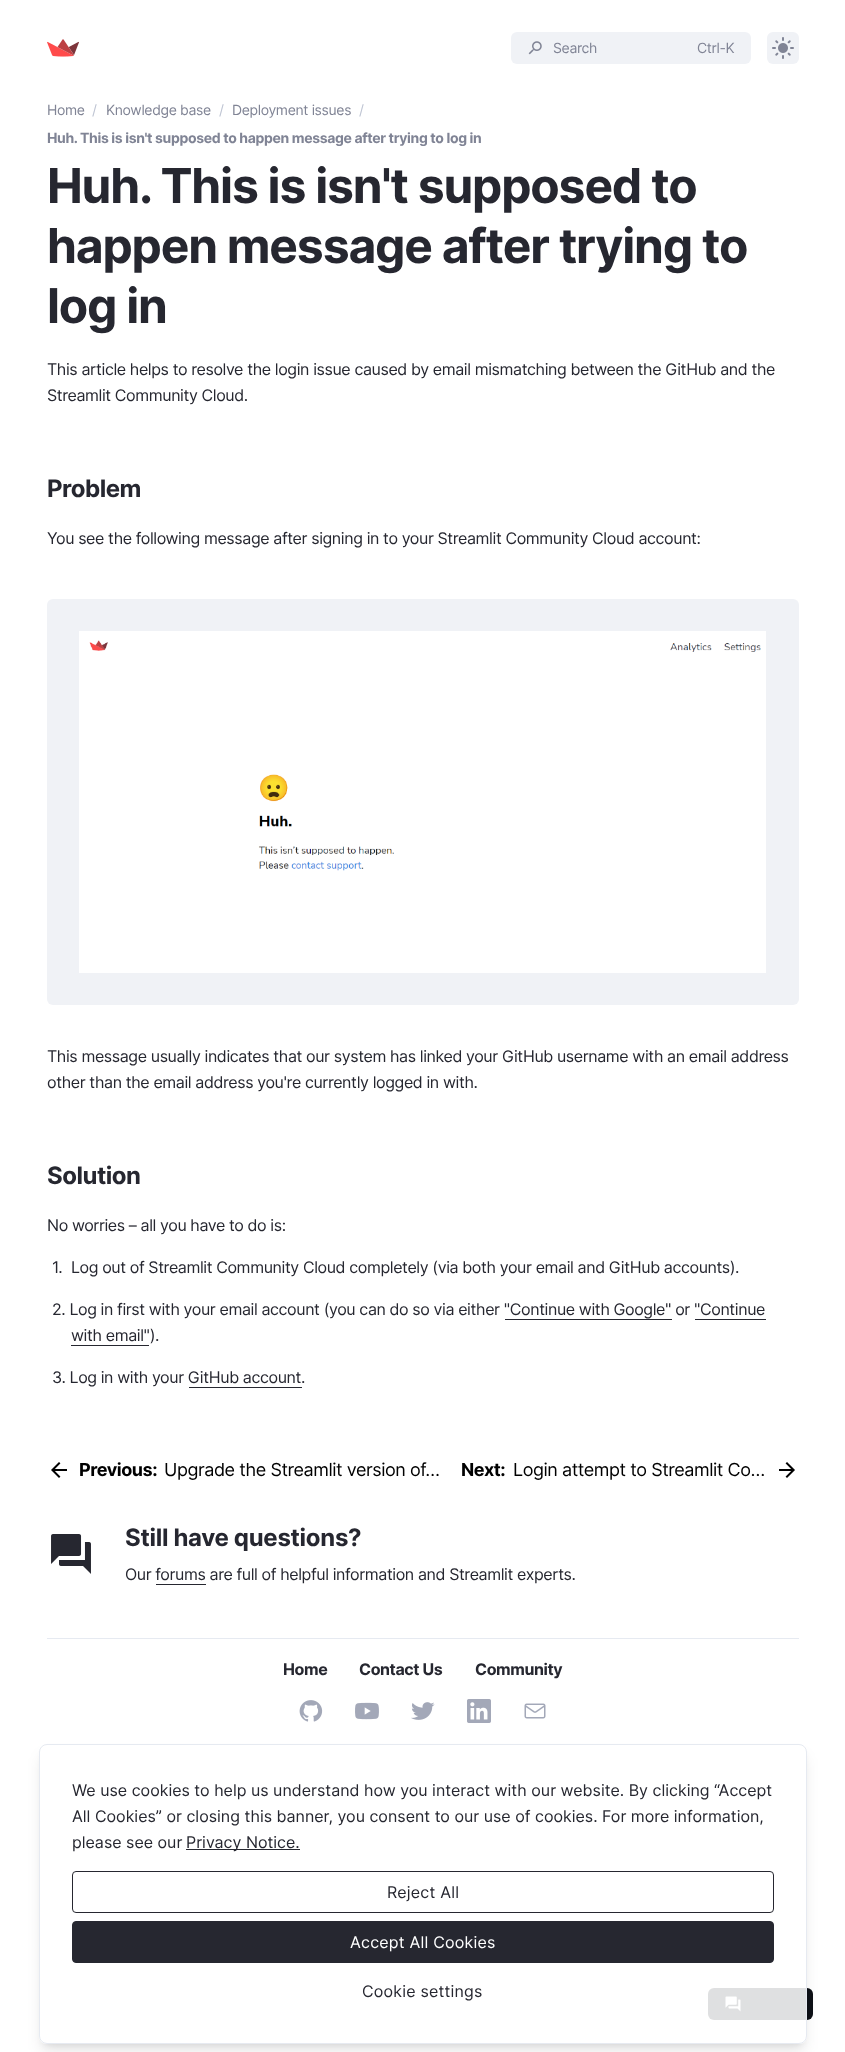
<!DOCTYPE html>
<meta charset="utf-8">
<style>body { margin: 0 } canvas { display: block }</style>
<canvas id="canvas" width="845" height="2052"></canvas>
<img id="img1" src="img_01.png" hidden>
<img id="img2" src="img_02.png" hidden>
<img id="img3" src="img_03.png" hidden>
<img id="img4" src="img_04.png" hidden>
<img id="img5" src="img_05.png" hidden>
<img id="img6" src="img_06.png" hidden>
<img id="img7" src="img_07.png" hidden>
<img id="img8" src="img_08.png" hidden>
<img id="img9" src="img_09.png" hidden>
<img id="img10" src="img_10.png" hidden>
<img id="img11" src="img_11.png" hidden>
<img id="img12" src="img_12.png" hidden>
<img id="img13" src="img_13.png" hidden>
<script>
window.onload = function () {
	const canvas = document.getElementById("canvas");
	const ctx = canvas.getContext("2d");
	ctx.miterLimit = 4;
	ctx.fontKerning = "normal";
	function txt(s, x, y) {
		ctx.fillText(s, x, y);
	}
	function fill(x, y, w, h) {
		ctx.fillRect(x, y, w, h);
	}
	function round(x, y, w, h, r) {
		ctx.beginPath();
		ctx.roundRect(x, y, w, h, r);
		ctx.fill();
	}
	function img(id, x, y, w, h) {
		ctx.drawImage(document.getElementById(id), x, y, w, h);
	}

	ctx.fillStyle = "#FFFFFF";
	fill(0, 0, 845, 2052);
	img("img1", 47, 39, 32, 18);
	ctx.fillStyle = "#F0F2F6";
	round(511, 32, 240, 32, 6);
	img("img2", 528, 41, 14, 14);
	round(767, 32, 32, 32, 6);
	img("img3", 772, 37, 22, 22);
	round(47, 599, 752, 406, 6);
	img("img4", 79, 631, 687, 342);
	ctx.fillStyle = "#262730";
	fill(505, 1319, 167, 1);
	fill(695, 1319, 71, 1);
	fill(71, 1345, 78, 1);
	fill(189, 1387, 113, 1);
	img("img5", 51, 1462, 16, 16);
	img("img6", 779, 1462, 16, 16);
	img("img7", 51, 1534, 40, 40);
	fill(156, 1584, 50, 1);
	ctx.fillStyle = "#E6EAF1";
	fill(47, 1638, 752, 1);
	img("img8", 299, 1700, 24, 22);
	img("img9", 355, 1702, 24, 18);
	img("img10", 411, 1702, 24, 18);
	img("img11", 467, 1699, 24, 24);
	img("img12", 524, 1703, 22, 16);
	ctx.fillStyle = "#0E1117";
	round(708, 1988, 105, 32, 6);
	img("img13", 725, 1996, 16, 16);
	ctx.save();
	ctx.beginPath();
	ctx.moveTo(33, 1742);
	ctx.lineTo(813, 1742);
	ctx.lineTo(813, 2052);
	ctx.lineTo(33, 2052);
	ctx.closePath();
	ctx.moveTo(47, 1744);
	ctx.lineTo(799, 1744);
	ctx.bezierCurveTo(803.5, 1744, 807, 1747.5, 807, 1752);
	ctx.lineTo(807, 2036);
	ctx.bezierCurveTo(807, 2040.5, 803.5, 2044, 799, 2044);
	ctx.lineTo(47, 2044);
	ctx.bezierCurveTo(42.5, 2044, 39, 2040.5, 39, 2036);
	ctx.lineTo(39, 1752);
	ctx.bezierCurveTo(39, 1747.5, 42.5, 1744, 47, 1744);
	ctx.closePath();
	ctx.clip("evenodd");
	ctx.fillStyle = "rgba(0, 0, 0, 0.1)";
	ctx.filter = "blur(3px)";
	ctx.beginPath();
	ctx.roundRect(43, 1752, 760, 292, 4);
	ctx.fill();
	ctx.filter = "none";
	ctx.restore();
	ctx.save();
	ctx.beginPath();
	ctx.moveTo(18, 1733);
	ctx.lineTo(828, 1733);
	ctx.lineTo(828, 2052);
	ctx.lineTo(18, 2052);
	ctx.closePath();
	ctx.moveTo(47, 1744);
	ctx.lineTo(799, 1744);
	ctx.bezierCurveTo(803.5, 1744, 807, 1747.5, 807, 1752);
	ctx.lineTo(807, 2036);
	ctx.bezierCurveTo(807, 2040.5, 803.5, 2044, 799, 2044);
	ctx.lineTo(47, 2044);
	ctx.bezierCurveTo(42.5, 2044, 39, 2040.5, 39, 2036);
	ctx.lineTo(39, 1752);
	ctx.bezierCurveTo(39, 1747.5, 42.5, 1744, 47, 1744);
	ctx.closePath();
	ctx.clip("evenodd");
	ctx.fillStyle = "rgba(0, 0, 0, 0.1)";
	ctx.filter = "blur(7.5px)";
	ctx.beginPath();
	ctx.roundRect(42, 1757, 762, 294, 5);
	ctx.fill();
	ctx.filter = "none";
	ctx.restore();
	ctx.fillStyle = "rgba(255, 255, 255, 0.87)";
	ctx.beginPath();
	ctx.roundRect(39.5, 1744.5, 767, 299, 7.5);
	ctx.fill();
	ctx.strokeStyle = "#E6EAF1";
	ctx.stroke();
	ctx.fillStyle = "#262730";
	fill(186, 1849, 114, 1);
	ctx.beginPath();
	ctx.roundRect(72.5, 1871.5, 701, 41, 3.5);
	ctx.strokeStyle = "#262730";
	ctx.stroke();
	ctx.beginPath();
	ctx.roundRect(72.5, 1921.5, 701, 41, 3.5);
	ctx.fill();
	ctx.stroke();
	ctx.letterSpacing = "-0.35px";
	ctx.font = "14px Inter";
	ctx.fillStyle = "#808495";
	txt("Search", 553, 53);
	txt("Ctrl-K", 697, 53);
	txt("Home", 47, 115);
	ctx.letterSpacing = "1px";
	ctx.fillStyle = "#BFC5D3";
	txt("/", 92, 115);
	ctx.letterSpacing = "-0.35px";
	ctx.fillStyle = "#808495";
	txt("Knowledge base", 106, 115);
	ctx.letterSpacing = "1px";
	ctx.fillStyle = "#BFC5D3";
	txt("/", 219, 115);
	ctx.letterSpacing = "-0.35px";
	ctx.fillStyle = "#808495";
	txt("Deployment issues", 232, 115);
	ctx.letterSpacing = "1px";
	ctx.fillStyle = "#BFC5D3";
	txt("/", 359, 115);
	ctx.letterSpacing = "-0.35px";
	ctx.font = "bold 14px Inter";
	ctx.fillStyle = "#808495";
	txt("Huh. This is isn't supposed to happen message after trying to log in", 47, 143);
	ctx.letterSpacing = "-1.2px";
	ctx.font = "bold 48px Inter";
	ctx.fillStyle = "#262730";
	txt("Huh. This is isn't supposed to", 47, 203);
	txt("happen message after trying to", 47, 263);
	txt("log in", 47, 323);
	ctx.letterSpacing = "-0.4px";
	ctx.font = "16px Inter";
	txt("This article helps to resolve the login issue caused by email mismatching between the GitHub and the", 47, 375);
	txt("Streamlit Community Cloud.", 47, 401);
	ctx.letterSpacing = "-0.5px";
	ctx.font = "bold 24px Inter";
	txt("Problem", 47, 497);
	ctx.letterSpacing = "-0.4px";
	ctx.font = "16px Inter";
	txt("You see the following message after signing in to your Streamlit Community Cloud account:", 47, 544);
	txt("This message usually indicates that our system has linked your GitHub username with an email address", 47, 1062);
	txt("other than the email address you're currently logged in with.", 47, 1088);
	ctx.letterSpacing = "-0.5px";
	ctx.font = "bold 24px Inter";
	txt("Solution", 47, 1184);
	ctx.letterSpacing = "-0.4px";
	ctx.font = "16px Inter";
	txt("No worries – all you have to do is:", 47, 1231);
	txt("1.", 52, 1273);
	txt("Log out of Streamlit Community Cloud completely (via both your email and GitHub accounts).", 71, 1273);
	txt("2. Log in first with your email account (you can do so via either \"Continue with Google\" or \"Continue", 52, 1315);
	txt("with email\").", 71, 1341);
	txt("3. Log in with your GitHub account.", 52, 1383);
	ctx.letterSpacing = "-0.45px";
	ctx.font = "bold 18px Inter";
	ctx.fillStyle = "#000000";
	txt("Previous:", 79, 1476);
	ctx.font = "18px Inter";
	txt("Upgrade the Streamlit version of…", 164, 1476);
	ctx.font = "bold 18px Inter";
	txt("Next:", 461, 1476);
	ctx.font = "18px Inter";
	txt("Login attempt to Streamlit Co…", 513, 1476);
	ctx.letterSpacing = "-0.3px";
	ctx.font = "bold 24px Inter";
	ctx.fillStyle = "#262730";
	txt("Still have questions?", 125, 1546);
	ctx.letterSpacing = "-0.4px";
	ctx.font = "16px Inter";
	txt("Our forums are full of helpful information and Streamlit experts.", 125, 1580);
	ctx.font = "bold 16px Inter";
	txt("Home", 283, 1675);
	txt("Contact Us", 359, 1675);
	txt("Community", 475, 1675);
	ctx.letterSpacing = "0px";
	ctx.font = "16px Inter";
	txt("We use cookies to help us understand how you interact with our website. By clicking “Accept", 72, 1796);
	txt("All Cookies” or closing this banner, you consent to our use of cookies. For more information,", 72, 1822);
	txt("please see our", 72, 1848);
	txt("Privacy Notice.", 186, 1848);
	ctx.letterSpacing = "0.2px";
	txt("Reject All", 387, 1898);
	ctx.fillStyle = "#FFFFFF";
	txt("Accept All Cookies", 350, 1948);
	ctx.fillStyle = "#262730";
	txt("Cookie settings", 362, 1997);
};
</script>
